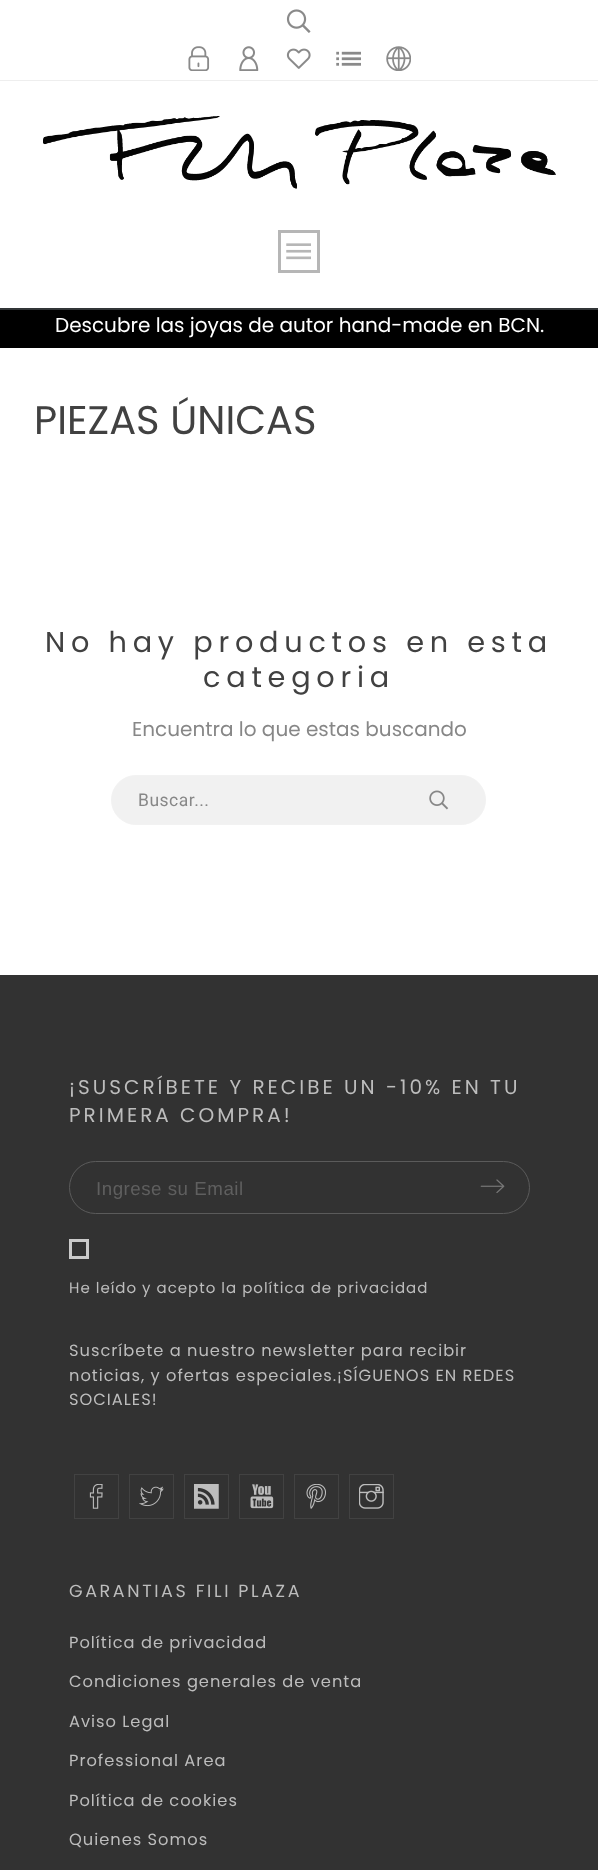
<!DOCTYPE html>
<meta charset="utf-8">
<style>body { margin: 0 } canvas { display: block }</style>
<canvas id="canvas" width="598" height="1870"></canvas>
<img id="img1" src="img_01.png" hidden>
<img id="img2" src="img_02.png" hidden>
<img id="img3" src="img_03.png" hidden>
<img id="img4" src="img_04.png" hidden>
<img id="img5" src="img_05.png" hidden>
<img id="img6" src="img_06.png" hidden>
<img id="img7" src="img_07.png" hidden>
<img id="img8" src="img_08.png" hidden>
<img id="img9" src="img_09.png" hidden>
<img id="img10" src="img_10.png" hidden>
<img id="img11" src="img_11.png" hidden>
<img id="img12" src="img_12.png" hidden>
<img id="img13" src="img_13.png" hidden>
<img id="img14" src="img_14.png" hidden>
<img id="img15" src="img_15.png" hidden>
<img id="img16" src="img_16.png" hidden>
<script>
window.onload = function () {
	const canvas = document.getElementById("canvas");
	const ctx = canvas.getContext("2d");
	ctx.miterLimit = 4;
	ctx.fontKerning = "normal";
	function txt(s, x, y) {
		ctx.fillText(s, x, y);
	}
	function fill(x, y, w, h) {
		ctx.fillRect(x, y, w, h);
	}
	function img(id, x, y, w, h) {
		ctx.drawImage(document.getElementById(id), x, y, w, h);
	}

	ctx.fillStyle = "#FFFFFF";
	fill(0, 0, 598, 1870);
	ctx.fillStyle = "#EEEEEE";
	fill(0, 80, 598, 1);
	img("img1", 286, 9, 25, 24);
	img("img2", 188, 46, 22, 25);
	img("img3", 239, 46, 20, 25);
	img("img4", 286, 48, 25, 21);
	img("img5", 336, 51, 25, 15);
	img("img6", 386, 46, 25, 25);
	ctx.fillStyle = "#313537";
	fill(0, 308, 598, 2);
	img("img7", 43, 116, 513, 73);
	ctx.strokeStyle = "#B6B6B6";
	ctx.lineWidth = 3;
	ctx.strokeRect(279.5, 231.5, 39, 40);
	img("img8", 286, 243, 25, 17);
	ctx.fillStyle = "#000000";
	fill(0, 310, 598, 38);
	ctx.fillStyle = "#F1F1F1";
	ctx.beginPath();
	ctx.roundRect(111.5, 775.5, 374, 49, 24.5);
	ctx.fill();
	ctx.strokeStyle = "#F2F2F2";
	ctx.lineWidth = 1;
	ctx.stroke();
	img("img9", 429, 790, 20, 20);
	ctx.fillStyle = "#323232";
	fill(0, 975, 598, 895);
	ctx.beginPath();
	ctx.roundRect(69.5, 1161.5, 460, 52, 26);
	ctx.strokeStyle = "#5B5B5B";
	ctx.stroke();
	img("img10", 480, 1179, 25, 14);
	ctx.strokeStyle = "#CACACA";
	ctx.lineWidth = 3;
	ctx.strokeRect(70.5, 1240.5, 17, 17);
	ctx.strokeStyle = "#424242";
	ctx.lineWidth = 1;
	ctx.strokeRect(74.5, 1474.5, 44, 44);
	img("img11", 89, 1484, 14, 25);
	ctx.strokeRect(129.5, 1474.5, 44, 44);
	img("img12", 139, 1486, 25, 21);
	ctx.strokeRect(184.5, 1474.5, 44, 44);
	img("img13", 194, 1484, 25, 25);
	ctx.strokeRect(239.5, 1474.5, 44, 44);
	img("img14", 250, 1484, 24, 25);
	ctx.strokeRect(294.5, 1474.5, 44, 44);
	img("img15", 306, 1484, 20, 25);
	ctx.strokeRect(349.5, 1474.5, 44, 44);
	img("img16", 359, 1484, 25, 25);
	ctx.font = "20px Poppins";
	ctx.fillStyle = "#FFFFFF";
	txt("Descubre las joyas de autor hand-made en BCN.", 55, 332);
	ctx.font = "40px Poppins";
	ctx.fillStyle = "#414141";
	txt("PIEZAS ÚNICAS", 34, 434);
	ctx.letterSpacing = "5.75px";
	ctx.font = "28.75px Poppins";
	txt("No hay productos en esta", 45, 652);
	txt("categoria", 203, 687);
	ctx.letterSpacing = "0px";
	ctx.font = "20px Poppins";
	ctx.fillStyle = "#878787";
	txt("Encuentra lo que estas buscando", 132, 736);
	ctx.letterSpacing = "0.5px";
	ctx.font = "17.5px Roboto";
	txt("Buscar...", 138, 806);
	ctx.letterSpacing = "3px";
	ctx.font = "20px Poppins";
	ctx.fillStyle = "#BDBDBD";
	txt("¡SUSCRÍBETE Y RECIBE UN -10% EN TU", 69, 1094);
	txt("PRIMERA COMPRA!", 69, 1122);
	ctx.letterSpacing = "0.5px";
	ctx.font = "18.75px Liberation Sans";
	ctx.fillStyle = "#5F5F5F";
	txt("Ingrese su Email", 96, 1195);
	ctx.letterSpacing = "1px";
	ctx.font = "15px Poppins";
	ctx.fillStyle = "#BDBDBD";
	txt("He leído y acepto la política de privacidad", 69, 1293);
	ctx.font = "16.25px Poppins";
	txt("Suscríbete a nuestro newsletter para recibir", 69, 1356);
	txt("noticias, y ofertas especiales.¡SÍGUENOS EN REDES", 69, 1381);
	txt("SOCIALES!", 69, 1405);
	ctx.letterSpacing = "2.6px";
	ctx.font = "17.5px Poppins";
	txt("GARANTIAS FILI PLAZA", 69, 1597);
	ctx.letterSpacing = "1px";
	ctx.font = "16.25px Poppins";
	txt("Política de privacidad", 69, 1648);
	txt("Condiciones generales de venta", 69, 1687);
	txt("Aviso Legal", 69, 1727);
	txt("Professional Area", 69, 1766);
	txt("Política de cookies", 69, 1806);
	txt("Quienes Somos", 69, 1845);
};
</script>
